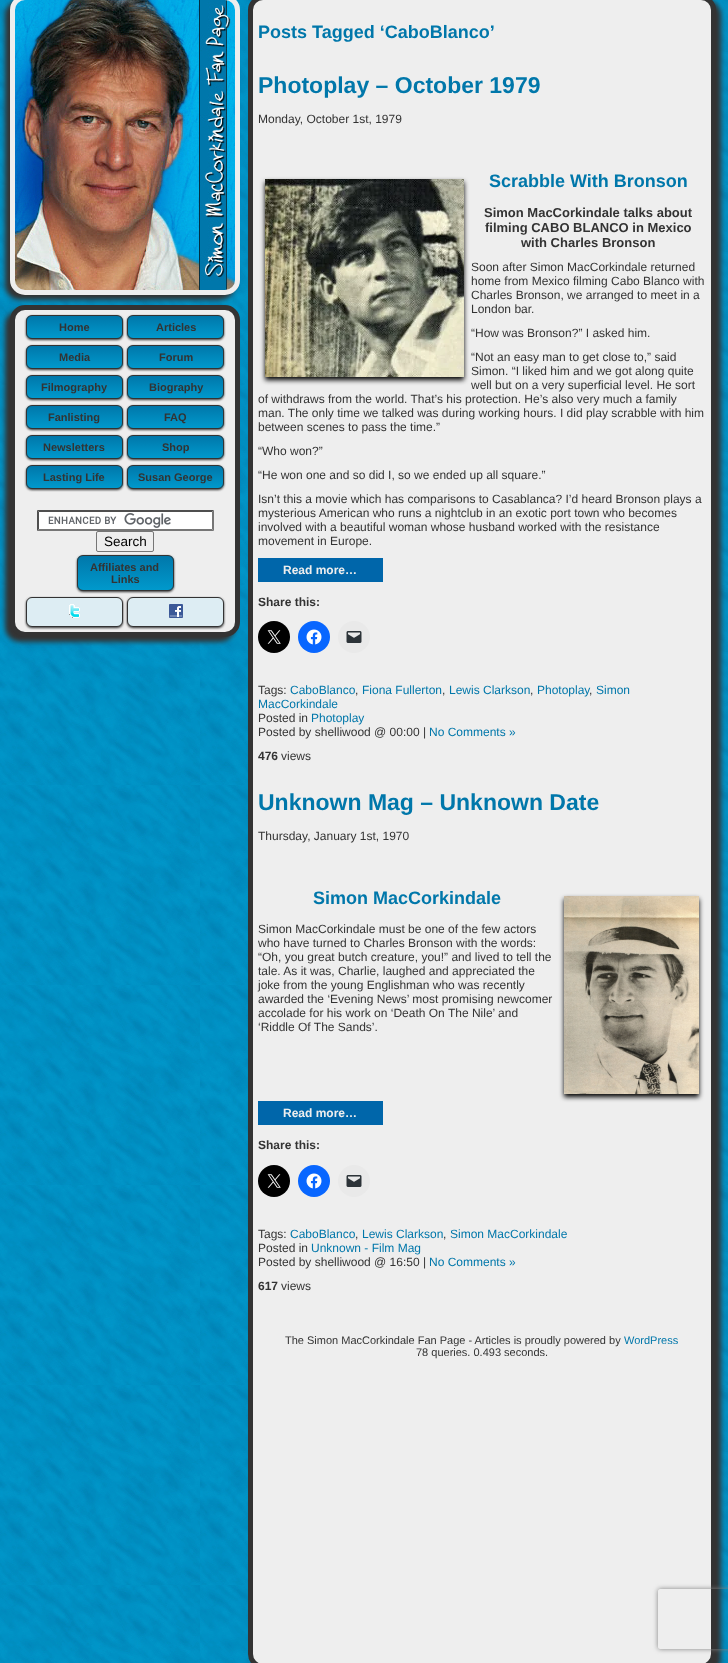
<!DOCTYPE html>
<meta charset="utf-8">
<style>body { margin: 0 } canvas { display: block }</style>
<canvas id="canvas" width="728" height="1663"></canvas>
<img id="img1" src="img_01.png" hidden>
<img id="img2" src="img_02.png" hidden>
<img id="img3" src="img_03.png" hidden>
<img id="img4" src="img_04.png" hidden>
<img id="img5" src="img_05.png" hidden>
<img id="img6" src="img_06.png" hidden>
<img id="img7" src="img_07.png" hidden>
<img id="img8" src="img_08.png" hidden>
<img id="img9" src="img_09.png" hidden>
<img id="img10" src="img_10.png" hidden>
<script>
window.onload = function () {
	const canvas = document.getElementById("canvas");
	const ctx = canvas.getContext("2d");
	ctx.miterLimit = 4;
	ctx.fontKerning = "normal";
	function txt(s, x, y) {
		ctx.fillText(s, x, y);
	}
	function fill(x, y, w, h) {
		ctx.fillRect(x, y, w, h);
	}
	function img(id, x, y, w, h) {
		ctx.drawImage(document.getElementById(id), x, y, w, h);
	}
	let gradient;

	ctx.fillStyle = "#FFFFFF";
	fill(0, 0, 728, 1663);
	img("img1", 0, 0, 728, 1663);
	ctx.fillStyle = "#333333";
	ctx.filter = "blur(2.5px)";
	ctx.beginPath();
	ctx.roundRect(5, 0, 230, 300, 15);
	ctx.fill();
	ctx.filter = "none";
	img("img2", 15, 0, 225, 290);
	ctx.beginPath();
	ctx.roundRect(12.5, -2.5, 225, 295, 12.5);
	ctx.strokeStyle = "#EEEEEE";
	ctx.lineWidth = 5;
	ctx.stroke();
	ctx.filter = "blur(2.5px)";
	ctx.beginPath();
	ctx.roundRect(253, 0, 468, 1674, 15);
	ctx.fill();
	ctx.filter = "none";
	ctx.fillStyle = "#EEEEEE";
	ctx.beginPath();
	ctx.roundRect(250.5, -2.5, 463, 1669, 12.5);
	ctx.fill();
	ctx.strokeStyle = "#333333";
	ctx.stroke();
	ctx.fillStyle = "#000000";
	ctx.filter = "blur(2.5px)";
	ctx.beginPath();
	ctx.rect(265, 182, 199, 198);
	ctx.fill();
	ctx.filter = "none";
	img("img3", 265, 179, 199, 198);
	ctx.fillStyle = "#0066AA";
	fill(258, 558, 125, 24);
	ctx.fillStyle = "#000000";
	ctx.beginPath();
	ctx.arc(274, 637, 16, 0, Math.PI * 2);
	ctx.fill();
	img("img4", 267, 630, 14, 14);
	ctx.fillStyle = "#0866FF";
	ctx.beginPath();
	ctx.arc(314, 637, 16, 0, Math.PI * 2);
	ctx.fill();
	img("img5", 306, 629, 16, 16);
	ctx.fillStyle = "#E9E9E9";
	ctx.beginPath();
	ctx.arc(354, 637, 16, 0, Math.PI * 2);
	ctx.fill();
	img("img6", 346, 631, 16, 12);
	ctx.fillStyle = "#000000";
	ctx.filter = "blur(2.5px)";
	ctx.beginPath();
	ctx.rect(564, 899, 135, 198);
	ctx.fill();
	ctx.filter = "none";
	img("img7", 564, 896, 135, 198);
	ctx.fillStyle = "#0066AA";
	fill(258, 1101, 125, 24);
	ctx.fillStyle = "#000000";
	ctx.beginPath();
	ctx.arc(274, 1181, 16, 0, Math.PI * 2);
	ctx.fill();
	img("img4", 267, 1174, 14, 14);
	ctx.fillStyle = "#0866FF";
	ctx.beginPath();
	ctx.arc(314, 1181, 16, 0, Math.PI * 2);
	ctx.fill();
	img("img5", 306, 1173, 16, 16);
	ctx.fillStyle = "#E9E9E9";
	ctx.beginPath();
	ctx.arc(354, 1181, 16, 0, Math.PI * 2);
	ctx.fill();
	img("img6", 346, 1175, 16, 12);
	ctx.fillStyle = "#333333";
	ctx.filter = "blur(2.5px)";
	ctx.beginPath();
	ctx.roundRect(5, 310, 230, 332, 15);
	ctx.fill();
	ctx.filter = "none";
	ctx.fillStyle = "#EEEEEE";
	ctx.beginPath();
	ctx.roundRect(12.5, 307.5, 225, 327, 12.5);
	ctx.fill();
	ctx.stroke();
	ctx.fillStyle = "#333333";
	ctx.filter = "blur(1px)";
	ctx.beginPath();
	ctx.roundRect(26, 316, 97, 24, 6);
	ctx.fill();
	ctx.filter = "none";
	ctx.save();
	ctx.beginPath();
	ctx.roundRect(26, 315, 97, 24, 6);
	ctx.clip();
	gradient = ctx.createLinearGradient(75, 316, 75, 338);
	gradient.addColorStop(0, "#0077AA");
	gradient.addColorStop(1, "#0099CC");
	ctx.fillStyle = gradient;
	fill(26, 316, 97, 22);
	ctx.restore();
	ctx.beginPath();
	ctx.roundRect(26.5, 315.5, 96, 23, 5.5);
	ctx.lineWidth = 1;
	ctx.stroke();
	ctx.filter = "blur(1px)";
	ctx.beginPath();
	ctx.roundRect(127, 316, 97, 24, 6);
	ctx.fill();
	ctx.filter = "none";
	ctx.save();
	ctx.beginPath();
	ctx.roundRect(127, 315, 97, 24, 6);
	ctx.clip();
	gradient = ctx.createLinearGradient(176, 316, 176, 338);
	gradient.addColorStop(0, "#0077AA");
	gradient.addColorStop(1, "#0099CC");
	ctx.fillStyle = gradient;
	fill(127, 316, 97, 22);
	ctx.restore();
	ctx.beginPath();
	ctx.roundRect(127.5, 315.5, 96, 23, 5.5);
	ctx.stroke();
	ctx.filter = "blur(1px)";
	ctx.beginPath();
	ctx.roundRect(26, 346, 97, 24, 6);
	ctx.fill();
	ctx.filter = "none";
	ctx.save();
	ctx.beginPath();
	ctx.roundRect(26, 345, 97, 24, 6);
	ctx.clip();
	gradient = ctx.createLinearGradient(75, 346, 75, 368);
	gradient.addColorStop(0, "#0077AA");
	gradient.addColorStop(1, "#0099CC");
	ctx.fillStyle = gradient;
	fill(26, 346, 97, 22);
	ctx.restore();
	ctx.beginPath();
	ctx.roundRect(26.5, 345.5, 96, 23, 5.5);
	ctx.stroke();
	ctx.filter = "blur(1px)";
	ctx.beginPath();
	ctx.roundRect(127, 346, 97, 24, 6);
	ctx.fill();
	ctx.filter = "none";
	ctx.save();
	ctx.beginPath();
	ctx.roundRect(127, 345, 97, 24, 6);
	ctx.clip();
	gradient = ctx.createLinearGradient(176, 346, 176, 368);
	gradient.addColorStop(0, "#0077AA");
	gradient.addColorStop(1, "#0099CC");
	ctx.fillStyle = gradient;
	fill(127, 346, 97, 22);
	ctx.restore();
	ctx.beginPath();
	ctx.roundRect(127.5, 345.5, 96, 23, 5.5);
	ctx.stroke();
	ctx.filter = "blur(1px)";
	ctx.beginPath();
	ctx.roundRect(26, 376, 97, 24, 6);
	ctx.fill();
	ctx.filter = "none";
	ctx.save();
	ctx.beginPath();
	ctx.roundRect(26, 375, 97, 24, 6);
	ctx.clip();
	gradient = ctx.createLinearGradient(75, 376, 75, 398);
	gradient.addColorStop(0, "#0077AA");
	gradient.addColorStop(1, "#0099CC");
	ctx.fillStyle = gradient;
	fill(26, 376, 97, 22);
	ctx.restore();
	ctx.beginPath();
	ctx.roundRect(26.5, 375.5, 96, 23, 5.5);
	ctx.stroke();
	ctx.filter = "blur(1px)";
	ctx.beginPath();
	ctx.roundRect(127, 376, 97, 24, 6);
	ctx.fill();
	ctx.filter = "none";
	ctx.save();
	ctx.beginPath();
	ctx.roundRect(127, 375, 97, 24, 6);
	ctx.clip();
	gradient = ctx.createLinearGradient(176, 376, 176, 398);
	gradient.addColorStop(0, "#0077AA");
	gradient.addColorStop(1, "#0099CC");
	ctx.fillStyle = gradient;
	fill(127, 376, 97, 22);
	ctx.restore();
	ctx.beginPath();
	ctx.roundRect(127.5, 375.5, 96, 23, 5.5);
	ctx.stroke();
	ctx.filter = "blur(1px)";
	ctx.beginPath();
	ctx.roundRect(26, 406, 97, 24, 6);
	ctx.fill();
	ctx.filter = "none";
	ctx.save();
	ctx.beginPath();
	ctx.roundRect(26, 405, 97, 24, 6);
	ctx.clip();
	gradient = ctx.createLinearGradient(75, 406, 75, 428);
	gradient.addColorStop(0, "#0077AA");
	gradient.addColorStop(1, "#0099CC");
	ctx.fillStyle = gradient;
	fill(26, 406, 97, 22);
	ctx.restore();
	ctx.beginPath();
	ctx.roundRect(26.5, 405.5, 96, 23, 5.5);
	ctx.stroke();
	ctx.filter = "blur(1px)";
	ctx.beginPath();
	ctx.roundRect(127, 406, 97, 24, 6);
	ctx.fill();
	ctx.filter = "none";
	ctx.save();
	ctx.beginPath();
	ctx.roundRect(127, 405, 97, 24, 6);
	ctx.clip();
	gradient = ctx.createLinearGradient(176, 406, 176, 428);
	gradient.addColorStop(0, "#0077AA");
	gradient.addColorStop(1, "#0099CC");
	ctx.fillStyle = gradient;
	fill(127, 406, 97, 22);
	ctx.restore();
	ctx.beginPath();
	ctx.roundRect(127.5, 405.5, 96, 23, 5.5);
	ctx.stroke();
	ctx.filter = "blur(1px)";
	ctx.beginPath();
	ctx.roundRect(26, 436, 97, 24, 6);
	ctx.fill();
	ctx.filter = "none";
	ctx.save();
	ctx.beginPath();
	ctx.roundRect(26, 435, 97, 24, 6);
	ctx.clip();
	gradient = ctx.createLinearGradient(75, 436, 75, 458);
	gradient.addColorStop(0, "#0077AA");
	gradient.addColorStop(1, "#0099CC");
	ctx.fillStyle = gradient;
	fill(26, 436, 97, 22);
	ctx.restore();
	ctx.beginPath();
	ctx.roundRect(26.5, 435.5, 96, 23, 5.5);
	ctx.stroke();
	ctx.filter = "blur(1px)";
	ctx.beginPath();
	ctx.roundRect(127, 436, 97, 24, 6);
	ctx.fill();
	ctx.filter = "none";
	ctx.save();
	ctx.beginPath();
	ctx.roundRect(127, 435, 97, 24, 6);
	ctx.clip();
	gradient = ctx.createLinearGradient(176, 436, 176, 458);
	gradient.addColorStop(0, "#0077AA");
	gradient.addColorStop(1, "#0099CC");
	ctx.fillStyle = gradient;
	fill(127, 436, 97, 22);
	ctx.restore();
	ctx.beginPath();
	ctx.roundRect(127.5, 435.5, 96, 23, 5.5);
	ctx.stroke();
	ctx.filter = "blur(1px)";
	ctx.beginPath();
	ctx.roundRect(26, 466, 97, 24, 6);
	ctx.fill();
	ctx.filter = "none";
	ctx.save();
	ctx.beginPath();
	ctx.roundRect(26, 465, 97, 24, 6);
	ctx.clip();
	gradient = ctx.createLinearGradient(75, 466, 75, 488);
	gradient.addColorStop(0, "#0077AA");
	gradient.addColorStop(1, "#0099CC");
	ctx.fillStyle = gradient;
	fill(26, 466, 97, 22);
	ctx.restore();
	ctx.beginPath();
	ctx.roundRect(26.5, 465.5, 96, 23, 5.5);
	ctx.stroke();
	ctx.filter = "blur(1px)";
	ctx.beginPath();
	ctx.roundRect(127, 466, 97, 24, 6);
	ctx.fill();
	ctx.filter = "none";
	ctx.save();
	ctx.beginPath();
	ctx.roundRect(127, 465, 97, 24, 6);
	ctx.clip();
	gradient = ctx.createLinearGradient(176, 466, 176, 488);
	gradient.addColorStop(0, "#0077AA");
	gradient.addColorStop(1, "#0099CC");
	ctx.fillStyle = gradient;
	fill(127, 466, 97, 22);
	ctx.restore();
	ctx.beginPath();
	ctx.roundRect(127.5, 465.5, 96, 23, 5.5);
	ctx.stroke();
	ctx.fillStyle = "#FFFFFF";
	fill(37, 510, 177, 21);
	img("img8", 48, 513, 123, 15);
	ctx.fillStyle = "#4F4F4F";
	ctx.beginPath();
	ctx.moveTo(37, 510);
	ctx.lineTo(214, 510);
	ctx.lineTo(212, 512);
	ctx.lineTo(39, 512);
	ctx.closePath();
	ctx.fill();
	ctx.fillStyle = "#767676";
	ctx.beginPath();
	ctx.moveTo(214, 510);
	ctx.lineTo(214, 531);
	ctx.lineTo(212, 529);
	ctx.lineTo(212, 512);
	ctx.closePath();
	ctx.fill();
	ctx.beginPath();
	ctx.moveTo(214, 531);
	ctx.lineTo(37, 531);
	ctx.lineTo(39, 529);
	ctx.lineTo(212, 529);
	ctx.closePath();
	ctx.fill();
	ctx.fillStyle = "#4F4F4F";
	ctx.beginPath();
	ctx.moveTo(37, 531);
	ctx.lineTo(37, 510);
	ctx.lineTo(39, 512);
	ctx.lineTo(39, 529);
	ctx.closePath();
	ctx.fill();
	ctx.beginPath();
	ctx.roundRect(96.5, 531.5, 57, 20, 1.5);
	ctx.strokeStyle = "#767676";
	ctx.stroke();
	ctx.fillStyle = "#333333";
	ctx.filter = "blur(1px)";
	ctx.beginPath();
	ctx.roundRect(77, 556, 97, 36, 6);
	ctx.fill();
	ctx.filter = "none";
	ctx.save();
	ctx.beginPath();
	ctx.roundRect(77, 555, 97, 36, 6);
	ctx.clip();
	gradient = ctx.createLinearGradient(126, 556, 126, 590);
	gradient.addColorStop(0, "#0077AA");
	gradient.addColorStop(1, "#0099CC");
	ctx.fillStyle = gradient;
	fill(77, 556, 97, 34);
	ctx.restore();
	ctx.beginPath();
	ctx.roundRect(77.5, 555.5, 96, 35, 5.5);
	ctx.strokeStyle = "#333333";
	ctx.stroke();
	ctx.filter = "blur(1px)";
	ctx.beginPath();
	ctx.roundRect(26, 598, 97, 30, 6);
	ctx.fill();
	ctx.filter = "none";
	ctx.fillStyle = "#DDEDF3";
	ctx.beginPath();
	ctx.roundRect(26.5, 597.5, 96, 29, 5.5);
	ctx.fill();
	ctx.stroke();
	img("img9", 69, 604, 11, 14);
	ctx.fillStyle = "#333333";
	ctx.filter = "blur(1px)";
	ctx.beginPath();
	ctx.roundRect(127, 598, 97, 30, 6);
	ctx.fill();
	ctx.filter = "none";
	ctx.fillStyle = "#DDEDF3";
	ctx.beginPath();
	ctx.roundRect(127.5, 597.5, 96, 29, 5.5);
	ctx.fill();
	ctx.stroke();
	img("img10", 169, 604, 14, 14);
	ctx.save();
	ctx.beginPath();
	ctx.moveTo(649, 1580);
	ctx.lineTo(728, 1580);
	ctx.lineTo(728, 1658);
	ctx.lineTo(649, 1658);
	ctx.closePath();
	ctx.moveTo(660, 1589);
	ctx.lineTo(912, 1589);
	ctx.bezierCurveTo(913, 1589, 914, 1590, 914, 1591);
	ctx.lineTo(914, 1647);
	ctx.bezierCurveTo(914, 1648, 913, 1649, 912, 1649);
	ctx.lineTo(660, 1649);
	ctx.bezierCurveTo(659, 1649, 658, 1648, 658, 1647);
	ctx.lineTo(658, 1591);
	ctx.bezierCurveTo(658, 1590, 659, 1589, 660, 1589);
	ctx.closePath();
	ctx.clip("evenodd");
	ctx.fillStyle = "#808080";
	ctx.filter = "blur(2.5px)";
	ctx.beginPath();
	ctx.roundRect(658, 1589, 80, 60, 2);
	ctx.fill();
	ctx.filter = "none";
	ctx.restore();
	ctx.font = "bold 18px Liberation Sans";
	ctx.fillStyle = "#0077AA";
	txt("Posts Tagged ‘CaboBlanco’", 258, 38);
	ctx.font = "bold 23px Liberation Sans";
	txt("Photoplay – October 1979", 258, 93);
	ctx.font = "12px Liberation Sans";
	ctx.fillStyle = "#333333";
	txt("Monday, October 1st, 1979", 258, 123);
	ctx.font = "bold 18px Liberation Sans";
	ctx.fillStyle = "#0077AA";
	txt("Scrabble With Bronson", 489, 187);
	ctx.font = "bold 13px Liberation Sans";
	ctx.fillStyle = "#333333";
	txt("Simon MacCorkindale talks about", 484, 217);
	txt("filming CABO BLANCO in Mexico", 485, 232);
	txt("with Charles Bronson", 521, 247);
	ctx.font = "12px Liberation Sans";
	txt("Soon after Simon MacCorkindale returned", 471, 271);
	txt("home from Mexico filming Cabo Blanco with", 471, 285);
	txt("Charles Bronson, we arranged to meet in a", 471, 299);
	txt("London bar.", 471, 313);
	txt("“How was Bronson?” I asked him.", 471, 337);
	txt("“Not an easy man to get close to,” said", 471, 361);
	txt("Simon. “I liked him and we got along quite", 471, 375);
	txt("well but on a very superficial level. He sort", 471, 389);
	txt("of withdraws from the world. That’s his protection. He’s also very much a family", 258, 403);
	txt("man. The only time we talked was during working hours. I did play scrabble with him", 258, 417);
	txt("between scenes to pass the time.”", 258, 431);
	txt("“Who won?”", 258, 455);
	txt("“He won one and so did I, so we ended up all square.”", 258, 479);
	txt("Isn’t this a movie which has comparisons to Casablanca? I’d heard Bronson plays a", 258, 503);
	txt("mysterious American who runs a nightclub in an exotic port town who becomes", 258, 517);
	txt("involved with a beautiful woman whose husband worked with the resistance", 258, 531);
	txt("movement in Europe.", 258, 545);
	ctx.font = "bold 12px Liberation Sans";
	ctx.fillStyle = "#EEEEEE";
	txt("Read more…", 283, 574);
	ctx.fillStyle = "#333333";
	txt("Share this:", 258, 606);
	ctx.font = "12px Liberation Sans";
	txt("Tags:", 258, 694);
	ctx.fillStyle = "#0077AA";
	txt("CaboBlanco", 290, 694);
	ctx.fillStyle = "#333333";
	txt(",", 355, 694);
	ctx.fillStyle = "#0077AA";
	txt("Fiona Fullerton", 362, 694);
	ctx.fillStyle = "#333333";
	txt(",", 442, 694);
	ctx.fillStyle = "#0077AA";
	txt("Lewis Clarkson", 449, 694);
	ctx.fillStyle = "#333333";
	txt(",", 530, 694);
	ctx.fillStyle = "#0077AA";
	txt("Photoplay", 537, 694);
	txt("Simon", 596, 694);
	ctx.fillStyle = "#333333";
	txt(",", 589, 694);
	ctx.fillStyle = "#0077AA";
	txt("MacCorkindale", 258, 708);
	ctx.fillStyle = "#333333";
	txt("Posted in", 258, 722);
	ctx.fillStyle = "#0077AA";
	txt("Photoplay", 311, 722);
	ctx.fillStyle = "#333333";
	txt("Posted by shelliwood @ 00:00 |", 258, 736);
	ctx.fillStyle = "#0077AA";
	txt("No Comments »", 429, 736);
	ctx.font = "bold 12px Liberation Sans";
	ctx.fillStyle = "#333333";
	txt("476", 258, 760);
	ctx.font = "12px Liberation Sans";
	txt("views", 281, 760);
	ctx.font = "bold 23px Liberation Sans";
	ctx.fillStyle = "#0077AA";
	txt("Unknown Mag – Unknown Date", 258, 810);
	ctx.font = "12px Liberation Sans";
	ctx.fillStyle = "#333333";
	txt("Thursday, January 1st, 1970", 258, 840);
	ctx.font = "bold 18px Liberation Sans";
	ctx.fillStyle = "#0077AA";
	txt("Simon MacCorkindale", 313, 904);
	ctx.font = "12px Liberation Sans";
	ctx.fillStyle = "#333333";
	txt("Simon MacCorkindale must be one of the few actors", 258, 933);
	txt("who have turned to Charles Bronson with the words:", 258, 947);
	txt("“Oh, you great butch creature, you!” and lived to tell the", 258, 961);
	txt("tale. As it was, Charlie, laughed and appreciated the", 258, 975);
	txt("joke from the young Englishman who was recently", 258, 989);
	txt("awarded the ‘Evening News’ most promising newcomer", 258, 1003);
	txt("accolade for his work on ‘Death On The Nile’ and", 258, 1017);
	txt("‘Riddle Of The Sands’.", 258, 1031);
	ctx.font = "bold 12px Liberation Sans";
	ctx.fillStyle = "#EEEEEE";
	txt("Read more…", 283, 1117);
	ctx.fillStyle = "#333333";
	txt("Share this:", 258, 1149);
	ctx.font = "12px Liberation Sans";
	txt("Tags:", 258, 1238);
	ctx.fillStyle = "#0077AA";
	txt("CaboBlanco", 290, 1238);
	ctx.fillStyle = "#333333";
	txt(",", 355, 1238);
	ctx.fillStyle = "#0077AA";
	txt("Lewis Clarkson", 362, 1238);
	ctx.fillStyle = "#333333";
	txt(",", 443, 1238);
	ctx.fillStyle = "#0077AA";
	txt("Simon MacCorkindale", 450, 1238);
	ctx.fillStyle = "#333333";
	txt("Posted in", 258, 1252);
	ctx.fillStyle = "#0077AA";
	txt("Unknown - Film Mag", 311, 1252);
	ctx.fillStyle = "#333333";
	txt("Posted by shelliwood @ 16:50 |", 258, 1266);
	ctx.fillStyle = "#0077AA";
	txt("No Comments »", 429, 1266);
	ctx.font = "bold 12px Liberation Sans";
	ctx.fillStyle = "#333333";
	txt("617", 258, 1290);
	ctx.font = "12px Liberation Sans";
	txt("views", 281, 1290);
	ctx.font = "11px Liberation Sans";
	txt("The Simon MacCorkindale Fan Page - Articles is proudly powered by", 285, 1344);
	ctx.fillStyle = "#0077AA";
	txt("WordPress", 624, 1344);
	ctx.fillStyle = "#333333";
	txt("78 queries. 0.493 seconds.", 416, 1356);
	ctx.font = "bold 11px Liberation Sans";
	txt("Home", 59, 331);
	txt("Articles", 156, 331);
	txt("Media", 59, 361);
	txt("Forum", 159, 361);
	txt("Filmography", 41, 391);
	txt("Biography", 149, 391);
	txt("Fanlisting", 48, 421);
	txt("FAQ", 164, 421);
	txt("Newsletters", 43, 451);
	txt("Shop", 162, 451);
	txt("Lasting Life", 43, 481);
	txt("Susan George", 138, 481);
	ctx.font = "13.5px Liberation Sans";
	ctx.fillStyle = "#000000";
	txt("Search", 104, 546);
	ctx.font = "bold 11px Liberation Sans";
	ctx.fillStyle = "#333333";
	txt("Affiliates and", 90, 571);
	txt("Links", 111, 583);
};
</script>
